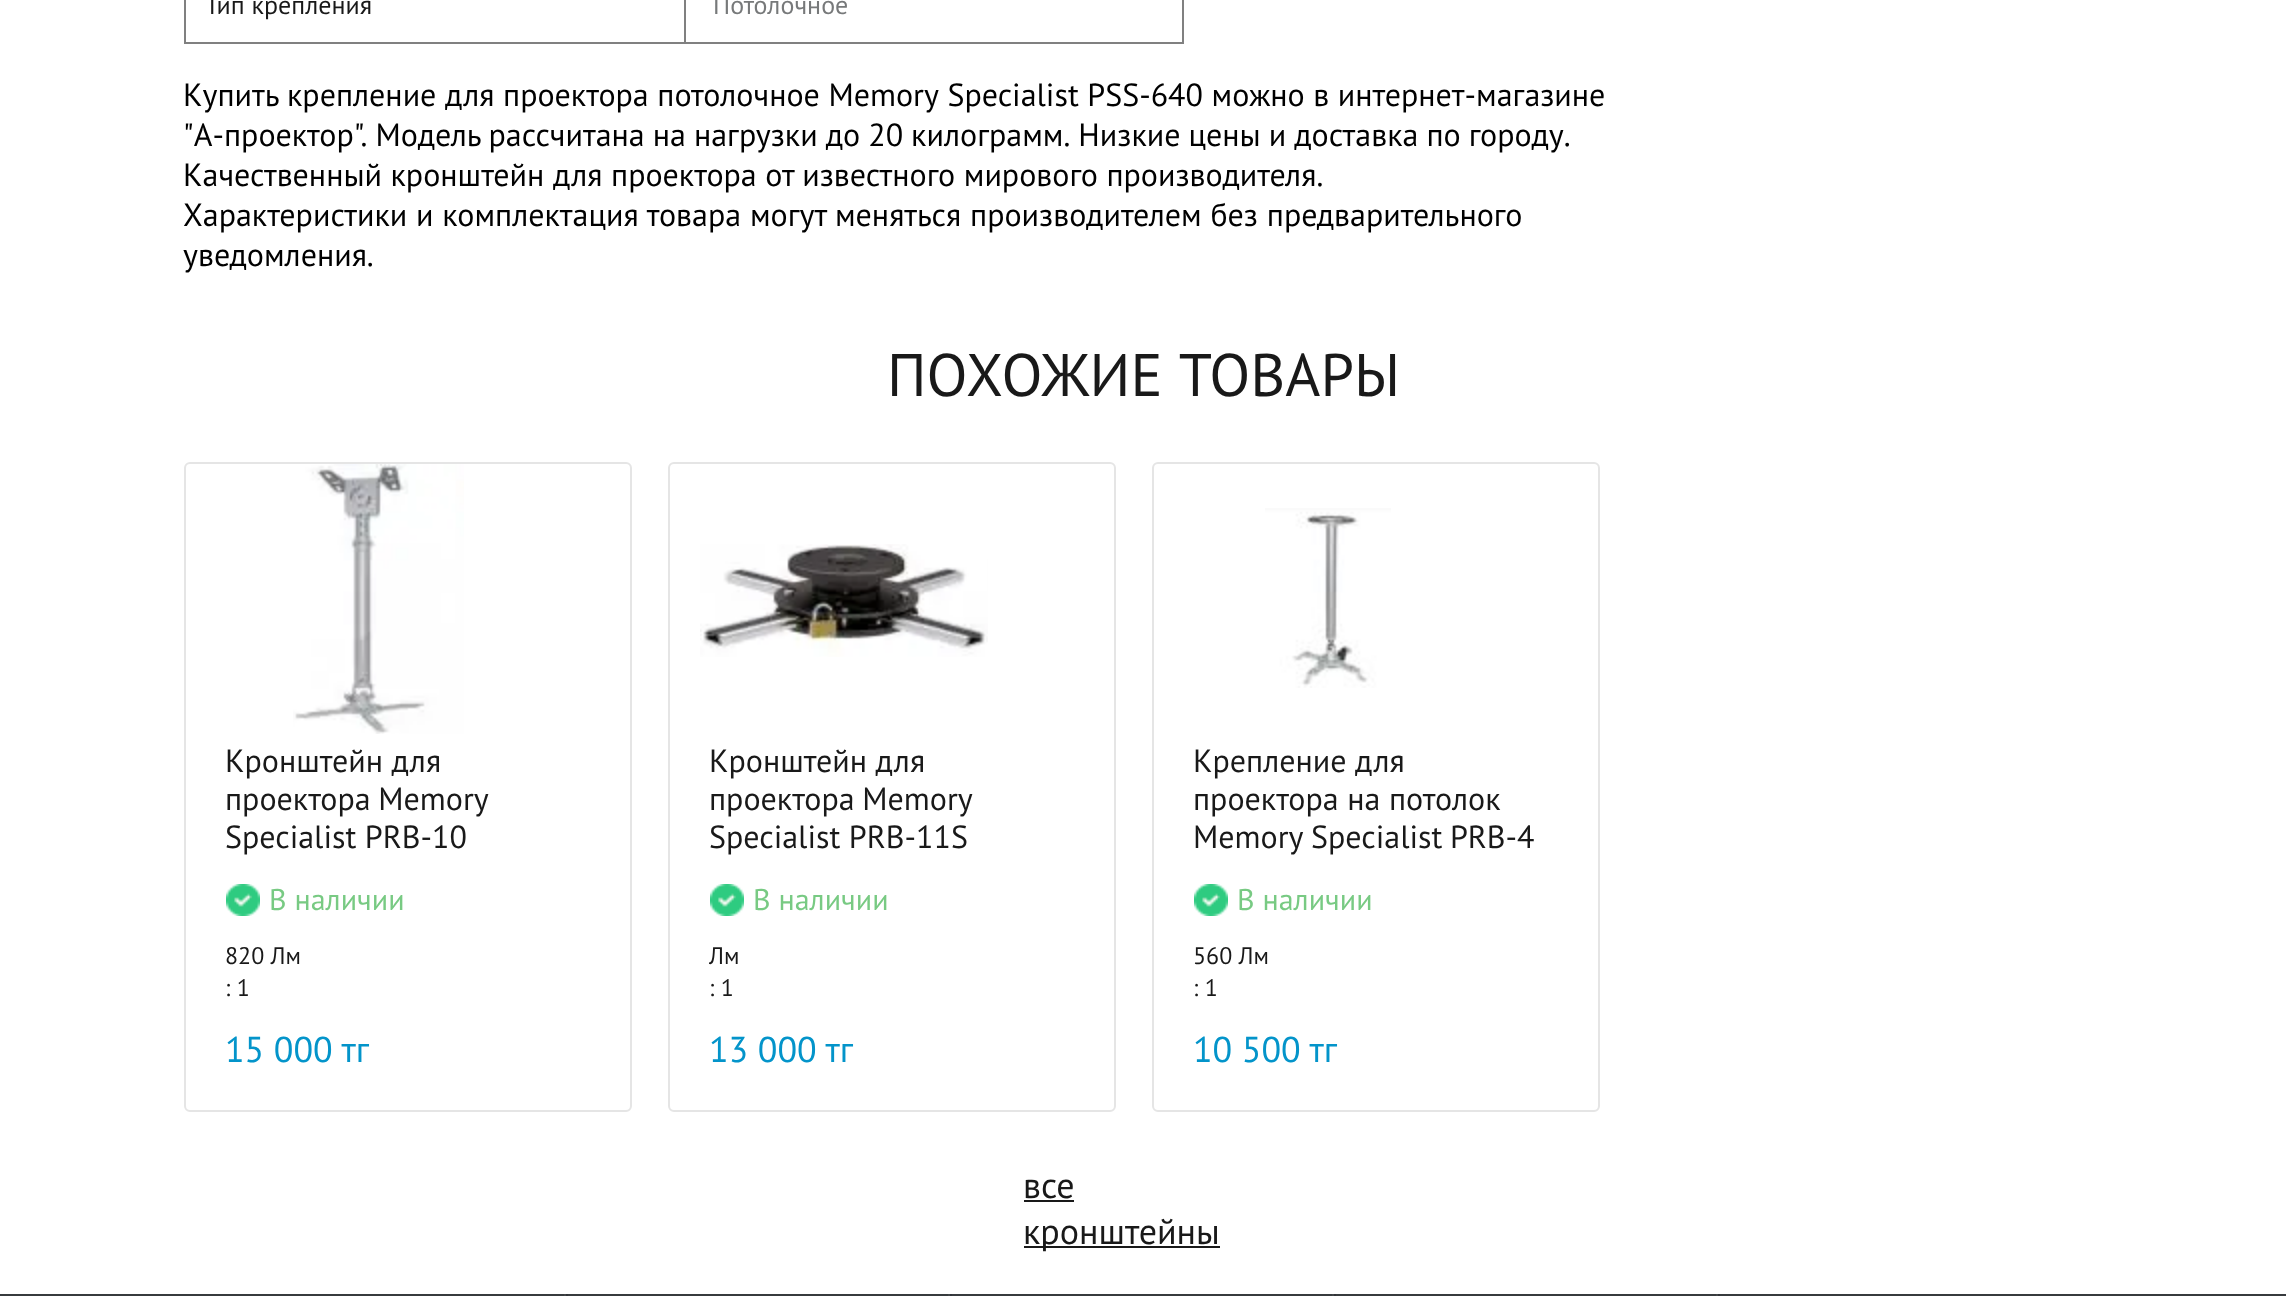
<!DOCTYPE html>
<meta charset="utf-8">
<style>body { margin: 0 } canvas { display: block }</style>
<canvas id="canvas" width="2286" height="1296"></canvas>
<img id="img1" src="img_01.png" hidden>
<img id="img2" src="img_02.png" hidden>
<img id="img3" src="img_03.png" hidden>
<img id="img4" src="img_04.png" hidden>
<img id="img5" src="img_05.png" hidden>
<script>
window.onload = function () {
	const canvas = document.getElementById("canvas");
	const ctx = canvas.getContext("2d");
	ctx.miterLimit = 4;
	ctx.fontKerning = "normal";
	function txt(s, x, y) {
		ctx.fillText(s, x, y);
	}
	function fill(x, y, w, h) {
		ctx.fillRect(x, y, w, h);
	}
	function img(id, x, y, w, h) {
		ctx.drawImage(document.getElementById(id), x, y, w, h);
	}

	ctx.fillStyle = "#FFFFFF";
	fill(0, 0, 2286, 1296);
	ctx.fillStyle = "#808080";
	fill(1182, 0, 2, 44);
	fill(184, 42, 1000, 2);
	fill(184, 0, 2, 44);
	fill(684, 0, 2, 44);
	ctx.beginPath();
	ctx.roundRect(185, 463, 446, 648, 5);
	ctx.strokeStyle = "#E5E5E5";
	ctx.lineWidth = 2;
	ctx.stroke();
	img("img1", 293, 464, 171, 270);
	img("img2", 226, 884, 34, 32);
	ctx.beginPath();
	ctx.roundRect(669, 463, 446, 648, 5);
	ctx.stroke();
	img("img3", 700, 544, 288, 113);
	img("img4", 710, 884, 34, 32);
	ctx.beginPath();
	ctx.roundRect(1153, 463, 446, 648, 5);
	ctx.stroke();
	img("img5", 1265, 508, 126, 180);
	img("img2", 1194, 884, 34, 32);
	ctx.fillStyle = "#191919";
	fill(1024, 1200, 50, 2);
	fill(1024, 1246, 196, 2);
	ctx.fillStyle = "#373B3E";
	fill(0, 1294, 2286, 2);
	ctx.fillStyle = "#414548";
	ctx.beginPath();
	ctx.moveTo(566, 1294);
	ctx.lineTo(566, 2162);
	ctx.lineTo(564, 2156);
	ctx.lineTo(564, 1294);
	ctx.closePath();
	ctx.fill();
	ctx.beginPath();
	ctx.moveTo(950, 1294);
	ctx.lineTo(950, 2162);
	ctx.lineTo(948, 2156);
	ctx.lineTo(948, 1294);
	ctx.closePath();
	ctx.fill();
	ctx.fillStyle = "#303338";
	ctx.beginPath();
	ctx.moveTo(566, 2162);
	ctx.lineTo(566, 1294);
	ctx.lineTo(568, 1294);
	ctx.lineTo(568, 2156);
	ctx.closePath();
	ctx.fill();
	ctx.fillStyle = "#414548";
	ctx.beginPath();
	ctx.moveTo(1334, 1294);
	ctx.lineTo(1334, 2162);
	ctx.lineTo(1332, 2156);
	ctx.lineTo(1332, 1294);
	ctx.closePath();
	ctx.fill();
	ctx.fillStyle = "#303338";
	ctx.beginPath();
	ctx.moveTo(950, 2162);
	ctx.lineTo(950, 1294);
	ctx.lineTo(952, 1294);
	ctx.lineTo(952, 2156);
	ctx.closePath();
	ctx.fill();
	ctx.fillStyle = "#414548";
	ctx.beginPath();
	ctx.moveTo(1718, 1294);
	ctx.lineTo(1718, 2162);
	ctx.lineTo(1716, 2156);
	ctx.lineTo(1716, 1294);
	ctx.closePath();
	ctx.fill();
	ctx.fillStyle = "#303338";
	ctx.beginPath();
	ctx.moveTo(1334, 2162);
	ctx.lineTo(1334, 1294);
	ctx.lineTo(1336, 1294);
	ctx.lineTo(1336, 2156);
	ctx.closePath();
	ctx.fill();
	ctx.beginPath();
	ctx.moveTo(1718, 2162);
	ctx.lineTo(1718, 1294);
	ctx.lineTo(1720, 1294);
	ctx.lineTo(1720, 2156);
	ctx.closePath();
	ctx.fill();
	ctx.font = "26px PT Sans";
	ctx.fillStyle = "#191919";
	txt("Тип крепления", 205, 14);
	ctx.fillStyle = "#77797A";
	txt("Потолочное", 713, 14);
	ctx.font = "32px PT Sans";
	ctx.fillStyle = "#000000";
	txt("Купить крепление для проектора потолочное Memory Specialist PSS-640 можно в интернет-магазине", 183, 106);
	ctx.wordSpacing = "-0.5px";
	txt("\"А-проектор\". Модель рассчитана на нагрузки до 20 килограмм. Низкие цены и доставка по городу.", 183, 146);
	ctx.wordSpacing = "0px";
	txt("Качественный кронштейн для проектора от известного мирового производителя.", 183, 186);
	ctx.wordSpacing = "0.25px";
	txt("Характеристики и комплектация товара могут меняться производителем без предварительного", 183, 226);
	ctx.wordSpacing = "0px";
	txt("уведомления.", 183, 266);
	ctx.wordSpacing = "2px";
	ctx.font = "60px PT Sans";
	ctx.fillStyle = "#191919";
	txt("ПОХОЖИЕ ТОВАРЫ", 887, 396);
	ctx.wordSpacing = "0px";
	ctx.font = "32px PT Sans";
	txt("Кронштейн для", 225, 772);
	ctx.wordSpacing = "-1px";
	txt("проектора Memory", 225, 810);
	ctx.wordSpacing = "0px";
	txt("Specialist PRB-10", 225, 848);
	ctx.font = "30px PT Sans";
	ctx.fillStyle = "#78CA83";
	txt("В наличии", 269, 910);
	ctx.font = "24px PT Sans";
	ctx.fillStyle = "#191919";
	txt("820 Лм", 225, 964);
	txt(": 1", 225, 996);
	ctx.font = "36px PT Sans";
	ctx.fillStyle = "#0394CA";
	txt("15 000 тг", 225, 1062);
	ctx.font = "32px PT Sans";
	ctx.fillStyle = "#191919";
	txt("Кронштейн для", 709, 772);
	ctx.wordSpacing = "-1px";
	txt("проектора Memory", 709, 810);
	ctx.wordSpacing = "0px";
	txt("Specialist PRB-11S", 709, 848);
	ctx.font = "30px PT Sans";
	ctx.fillStyle = "#78CA83";
	txt("В наличии", 753, 910);
	ctx.font = "24px PT Sans";
	ctx.fillStyle = "#191919";
	txt("Лм", 709, 964);
	txt(": 1", 709, 996);
	ctx.font = "36px PT Sans";
	ctx.fillStyle = "#0394CA";
	txt("13 000 тг", 709, 1062);
	ctx.font = "32px PT Sans";
	ctx.fillStyle = "#191919";
	txt("Крепление для", 1193, 772);
	txt("проектора на потолок", 1193, 810);
	ctx.wordSpacing = "-1px";
	txt("Memory Specialist PRB-4", 1193, 848);
	ctx.wordSpacing = "0px";
	ctx.font = "30px PT Sans";
	ctx.fillStyle = "#78CA83";
	txt("В наличии", 1237, 910);
	ctx.font = "24px PT Sans";
	ctx.fillStyle = "#191919";
	txt("560 Лм", 1193, 964);
	txt(": 1", 1193, 996);
	ctx.font = "36px PT Sans";
	ctx.fillStyle = "#0394CA";
	txt("10 500 тг", 1193, 1062);
	ctx.fillStyle = "#191919";
	txt("все", 1023, 1198);
	txt("кронштейны", 1023, 1244);
};
</script>
